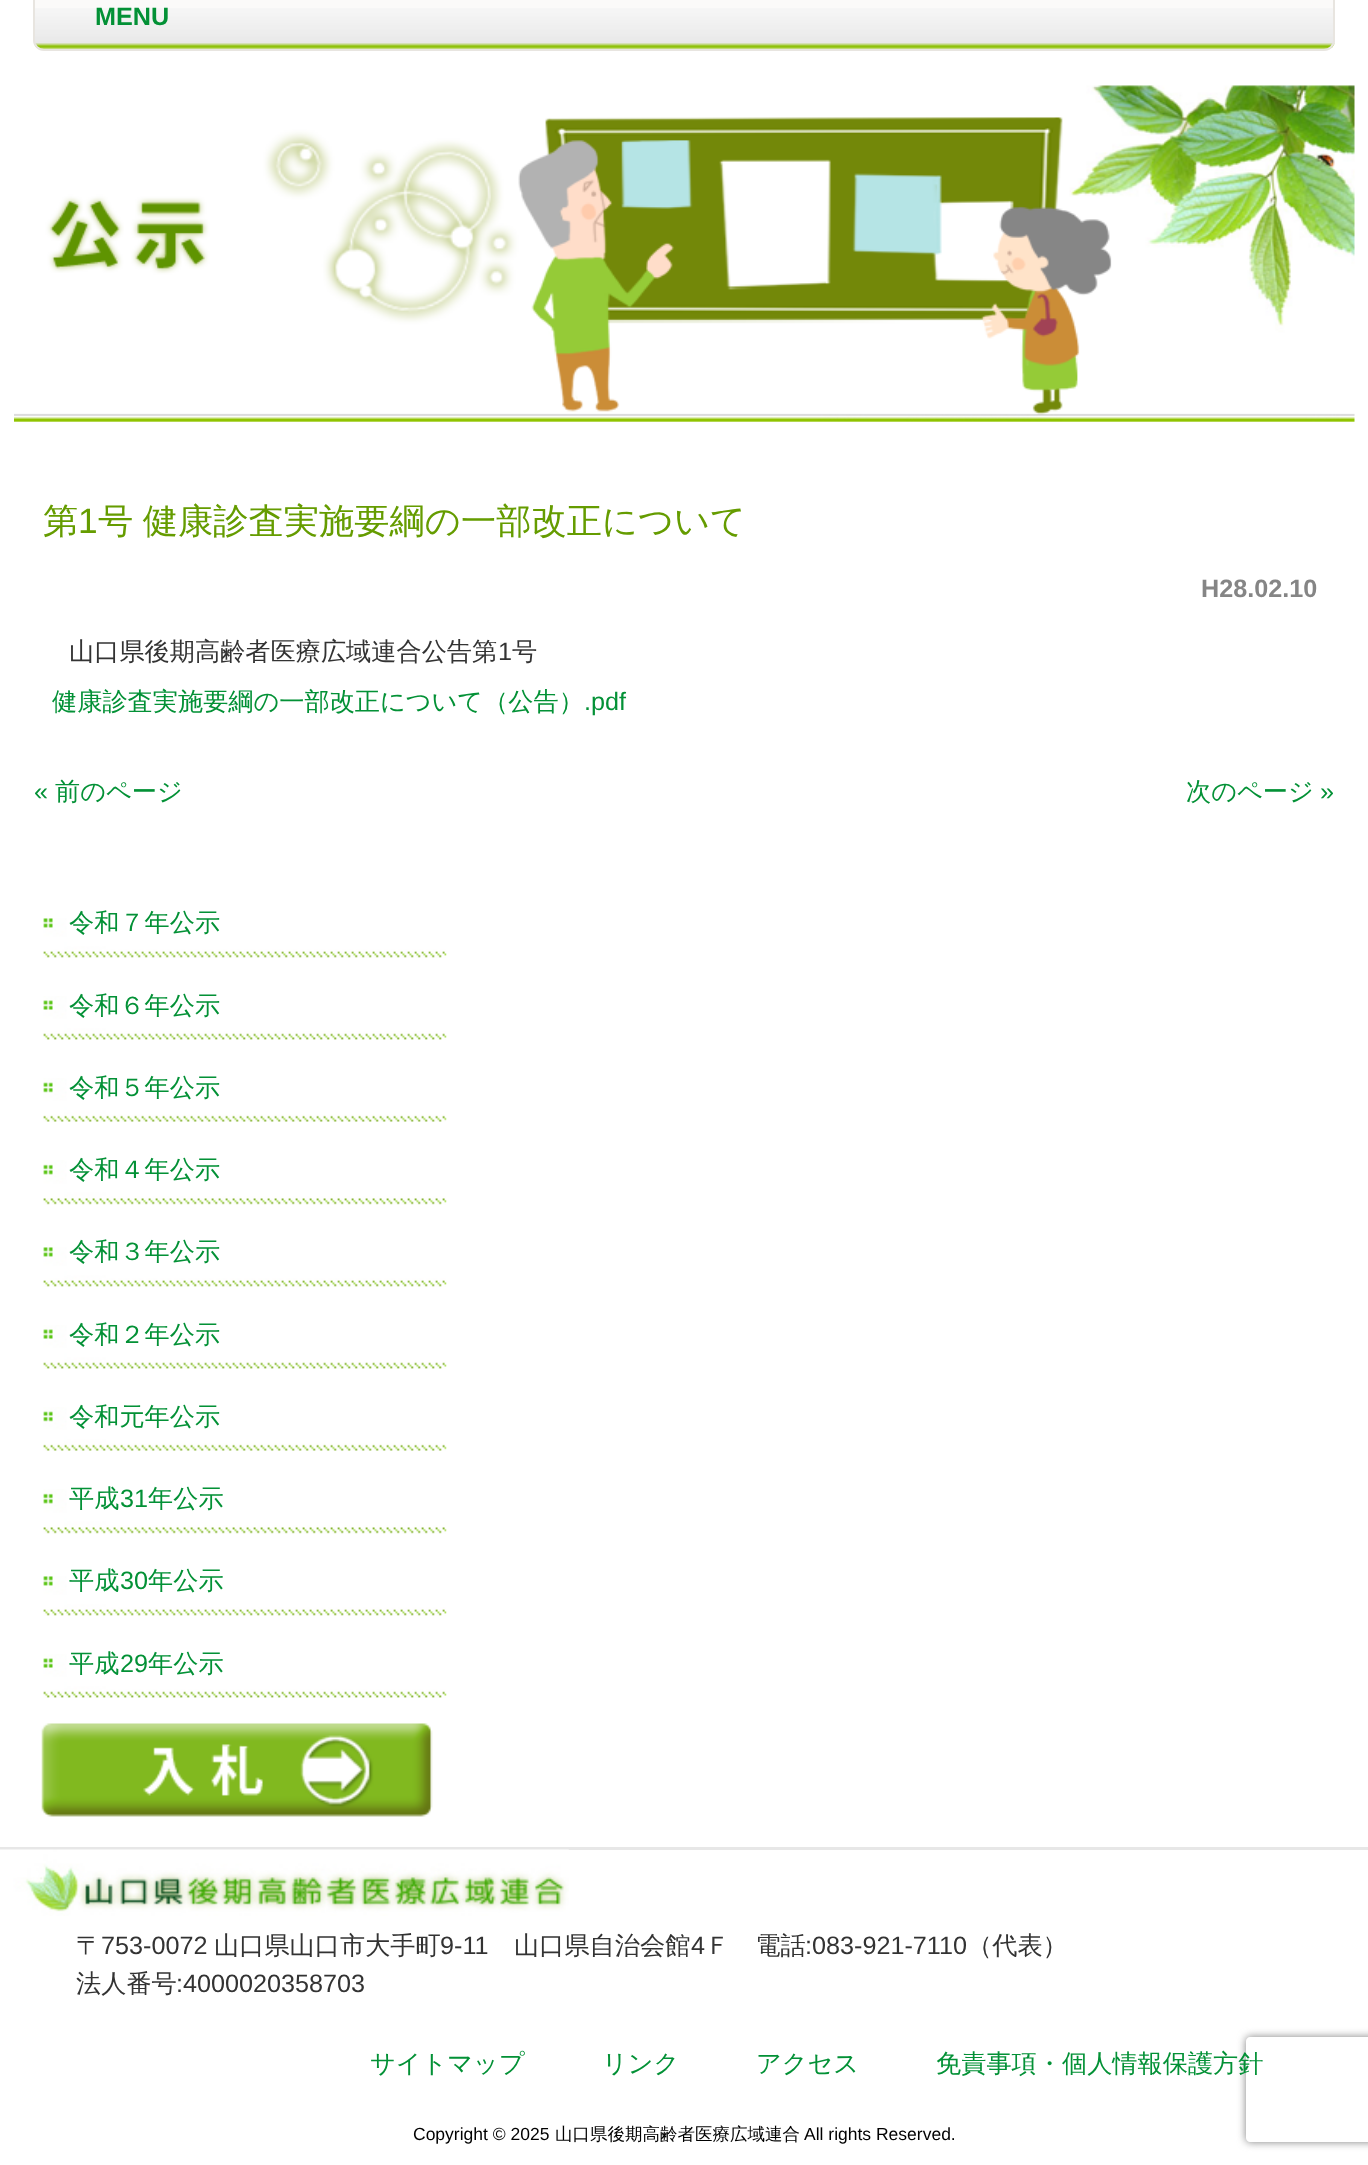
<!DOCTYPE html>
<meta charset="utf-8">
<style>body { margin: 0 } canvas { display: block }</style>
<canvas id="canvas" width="1368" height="2165"></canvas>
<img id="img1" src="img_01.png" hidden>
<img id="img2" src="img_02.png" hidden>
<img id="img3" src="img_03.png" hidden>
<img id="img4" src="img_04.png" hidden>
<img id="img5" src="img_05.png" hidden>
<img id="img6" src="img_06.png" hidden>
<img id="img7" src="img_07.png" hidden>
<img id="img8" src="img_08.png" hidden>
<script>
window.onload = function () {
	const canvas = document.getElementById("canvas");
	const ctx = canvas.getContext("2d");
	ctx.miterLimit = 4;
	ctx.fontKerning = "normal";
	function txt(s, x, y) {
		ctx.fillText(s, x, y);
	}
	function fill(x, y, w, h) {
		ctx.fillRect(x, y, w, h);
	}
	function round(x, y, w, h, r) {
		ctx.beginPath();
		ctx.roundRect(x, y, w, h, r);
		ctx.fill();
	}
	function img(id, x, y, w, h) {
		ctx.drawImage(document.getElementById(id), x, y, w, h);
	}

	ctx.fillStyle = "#FFFFFF";
	fill(0, 0, 1368, 2165);
	ctx.fillStyle = "#FBFAF9";
	round(33, -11, 1302, 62, 11);
	img("img1", 33, 8, 1302, 42);
	ctx.beginPath();
	ctx.roundRect(34, -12, 1300, 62, 10);
	ctx.strokeStyle = "#E8E5E0";
	ctx.lineWidth = 2;
	ctx.stroke();
	img("img2", 14, 85, 1341, 337);
	img("img3", 43, 918, 404, 40);
	img("img4", 43, 996, 404, 44);
	img("img5", 43, 1078, 404, 44);
	img("img6", 43, 1160, 404, 45);
	img("img3", 43, 1247, 404, 40);
	img("img4", 43, 1325, 404, 44);
	img("img5", 43, 1407, 404, 44);
	img("img6", 43, 1489, 404, 45);
	img("img3", 43, 1576, 404, 40);
	img("img4", 43, 1654, 404, 44);
	img("img7", 41, 1723, 392, 94);
	ctx.fillStyle = "#E7E7E7";
	fill(0, 1847, 1368, 3);
	img("img8", 0, 1849, 569, 67);
	ctx.save();
	ctx.beginPath();
	ctx.moveTo(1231, 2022);
	ctx.lineTo(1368, 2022);
	ctx.lineTo(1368, 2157);
	ctx.lineTo(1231, 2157);
	ctx.closePath();
	ctx.moveTo(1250, 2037);
	ctx.lineTo(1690, 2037);
	ctx.bezierCurveTo(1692, 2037, 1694, 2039, 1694, 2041);
	ctx.lineTo(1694, 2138);
	ctx.bezierCurveTo(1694, 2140, 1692, 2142, 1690, 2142);
	ctx.lineTo(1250, 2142);
	ctx.bezierCurveTo(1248, 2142, 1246, 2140, 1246, 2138);
	ctx.lineTo(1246, 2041);
	ctx.bezierCurveTo(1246, 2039, 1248, 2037, 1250, 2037);
	ctx.closePath();
	ctx.clip("evenodd");
	ctx.fillStyle = "#808080";
	ctx.filter = "blur(4.5px)";
	ctx.beginPath();
	ctx.roundRect(1246, 2037, 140, 105, 4);
	ctx.fill();
	ctx.filter = "none";
	ctx.restore();
	ctx.font = "bold 25.2px Liberation Sans";
	ctx.fillStyle = "#039136";
	txt("MENU", 95, 25);
	ctx.font = "500 35.25px WenQuanYi Zen Hei";
	ctx.fillStyle = "#659C00";
	txt("第", 43, 533);
	ctx.font = "35.25px Liberation Sans";
	txt("1", 78, 533);
	ctx.wordSpacing = "-1px";
	ctx.font = "500 35.25px WenQuanYi Zen Hei";
	txt("号 健康診査実施要綱の一部改正について", 98, 533);
	ctx.wordSpacing = "0px";
	ctx.font = "bold 25.2px Liberation Sans";
	ctx.fillStyle = "#858585";
	txt("H28.02.10", 1201, 597);
	ctx.font = "500 25.2px WenQuanYi Zen Hei";
	ctx.fillStyle = "#333333";
	txt("山口県後期高齢者医療広域連合公告第", 69, 660);
	ctx.font = "25.2px Liberation Sans";
	txt("1", 498, 660);
	ctx.font = "500 25.2px WenQuanYi Zen Hei";
	txt("号", 512, 660);
	ctx.fillStyle = "#039136";
	txt("健康診査実施要綱の一部改正について（公告）", 52, 710);
	ctx.font = "25.2px Liberation Sans";
	txt(".pdf", 584, 710);
	txt("«", 34, 800);
	ctx.font = "500 25.2px WenQuanYi Zen Hei";
	txt("前のページ", 55, 800);
	txt("次のページ", 1186, 800);
	ctx.font = "25.2px Liberation Sans";
	txt("»", 1320, 800);
	ctx.font = "500 25.2px WenQuanYi Zen Hei";
	txt("令和７年公示", 69, 931);
	txt("令和６年公示", 69, 1014);
	txt("令和５年公示", 69, 1096);
	txt("令和４年公示", 69, 1178);
	txt("令和３年公示", 69, 1260);
	txt("令和２年公示", 69, 1343);
	txt("令和元年公示", 69, 1425);
	txt("平成", 69, 1507);
	ctx.font = "25.2px Liberation Sans";
	txt("31", 120, 1507);
	ctx.font = "500 25.2px WenQuanYi Zen Hei";
	txt("年公示", 148, 1507);
	txt("平成", 69, 1589);
	ctx.font = "25.2px Liberation Sans";
	txt("30", 120, 1589);
	ctx.font = "500 25.2px WenQuanYi Zen Hei";
	txt("年公示", 148, 1589);
	txt("平成", 69, 1672);
	ctx.font = "25.2px Liberation Sans";
	txt("29", 120, 1672);
	ctx.font = "500 25.2px WenQuanYi Zen Hei";
	txt("年公示", 148, 1672);
	ctx.fillStyle = "#333333";
	txt("〒", 76, 1954);
	ctx.font = "25.2px Liberation Sans";
	txt("753-0072", 101, 1954);
	ctx.font = "500 25.2px WenQuanYi Zen Hei";
	txt("山口県山口市大手町", 214, 1954);
	ctx.font = "25.2px Liberation Sans";
	txt("9-11", 440, 1954);
	ctx.font = "500 25.2px WenQuanYi Zen Hei";
	txt("山口県自治会館", 514, 1954);
	ctx.font = "25.2px Liberation Sans";
	txt("4", 691, 1954);
	ctx.font = "500 25.2px WenQuanYi Zen Hei";
	txt("Ｆ　電話", 705, 1954);
	ctx.font = "25.2px Liberation Sans";
	txt(":083-921-7110", 805, 1954);
	ctx.font = "500 25.2px WenQuanYi Zen Hei";
	txt("（代表）", 967, 1954);
	txt("法人番号", 76, 1992);
	ctx.font = "25.2px Liberation Sans";
	txt(":4000020358703", 176, 1992);
	ctx.font = "500 25.2px WenQuanYi Zen Hei";
	ctx.fillStyle = "#039136";
	txt("サイトマップ", 370, 2072);
	txt("リンク", 602, 2072);
	txt("アクセス", 756, 2072);
	txt("免責事項・個人情報保護方針", 936, 2072);
	ctx.font = "17.5px Liberation Sans";
	ctx.fillStyle = "#000000";
	txt("Copyright © 2025", 413, 2140);
	ctx.font = "500 17.5px WenQuanYi Zen Hei";
	txt("山口県後期高齢者医療広域連合", 555, 2140);
	ctx.font = "17.5px Liberation Sans";
	txt("All rights Reserved.", 804, 2140);
};
</script>
